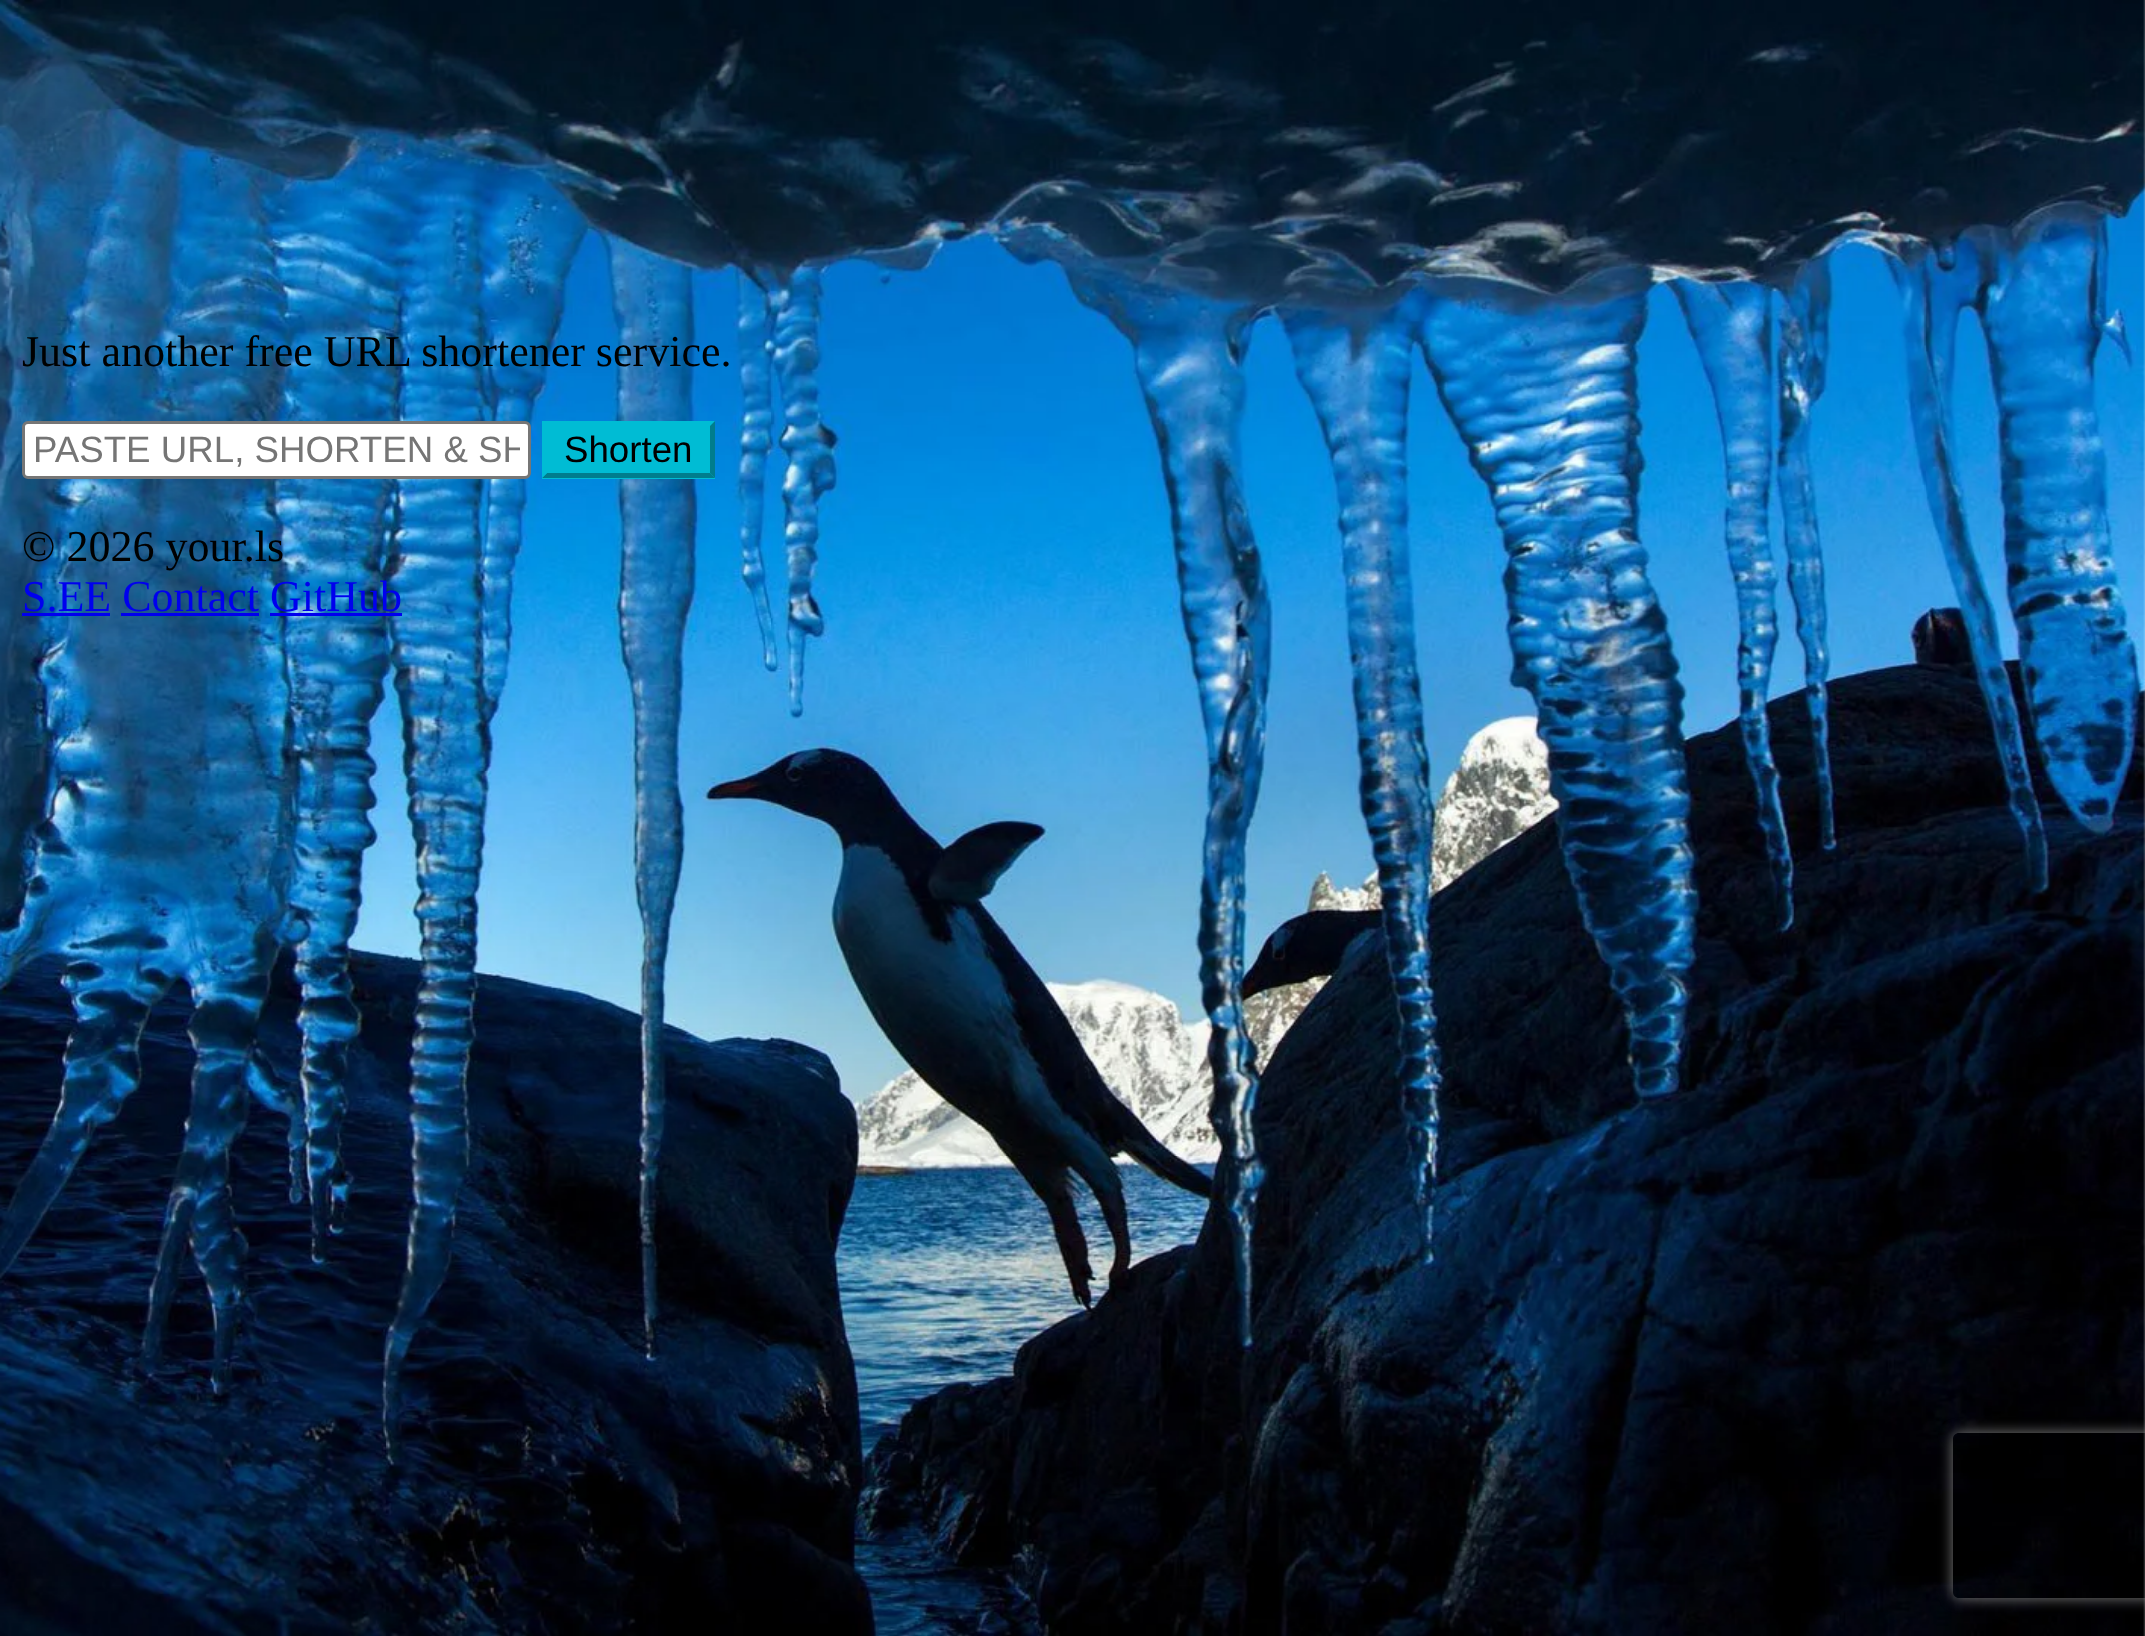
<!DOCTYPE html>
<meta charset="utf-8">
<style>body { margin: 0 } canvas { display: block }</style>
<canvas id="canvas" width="2145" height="1636"></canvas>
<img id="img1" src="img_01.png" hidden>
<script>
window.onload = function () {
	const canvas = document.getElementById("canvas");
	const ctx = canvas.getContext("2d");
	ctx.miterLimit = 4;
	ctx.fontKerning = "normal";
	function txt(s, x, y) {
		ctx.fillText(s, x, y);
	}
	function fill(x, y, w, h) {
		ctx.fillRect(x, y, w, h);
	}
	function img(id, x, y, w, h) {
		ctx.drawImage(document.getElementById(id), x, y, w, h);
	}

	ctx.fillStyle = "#FFFFFF";
	fill(0, 0, 2145, 1636);
	img("img1", 0, 0, 2145, 1636);
	ctx.beginPath();
	ctx.roundRect(23.5, 422.5, 506, 55, 4.5);
	ctx.fill();
	ctx.strokeStyle = "#767676";
	ctx.lineWidth = 3;
	ctx.stroke();
	ctx.fillStyle = "#00BCD4";
	fill(542, 421, 173, 58);
	ctx.fillStyle = "#007D8D";
	ctx.beginPath();
	ctx.moveTo(715, 421);
	ctx.lineTo(715, 478);
	ctx.lineTo(710, 473);
	ctx.lineTo(710, 426);
	ctx.closePath();
	ctx.fill();
	ctx.beginPath();
	ctx.moveTo(715, 478);
	ctx.lineTo(542, 478);
	ctx.lineTo(547, 473);
	ctx.lineTo(710, 473);
	ctx.closePath();
	ctx.fill();
	ctx.fillStyle = "#00BCD4";
	ctx.beginPath();
	ctx.moveTo(542, 478);
	ctx.lineTo(542, 421);
	ctx.lineTo(547, 426);
	ctx.lineTo(547, 473);
	ctx.closePath();
	ctx.fill();
	ctx.fillStyle = "#0000EE";
	fill(22, 613, 88, 3);
	fill(121, 613, 138, 3);
	fill(270, 613, 132, 3);
	ctx.save();
	ctx.beginPath();
	ctx.moveTo(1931, 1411);
	ctx.lineTo(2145, 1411);
	ctx.lineTo(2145, 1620);
	ctx.lineTo(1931, 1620);
	ctx.closePath();
	ctx.moveTo(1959, 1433);
	ctx.lineTo(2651, 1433);
	ctx.bezierCurveTo(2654.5, 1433, 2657, 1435.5, 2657, 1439);
	ctx.lineTo(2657, 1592);
	ctx.bezierCurveTo(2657, 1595.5, 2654.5, 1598, 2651, 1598);
	ctx.lineTo(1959, 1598);
	ctx.bezierCurveTo(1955.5, 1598, 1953, 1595.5, 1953, 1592);
	ctx.lineTo(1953, 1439);
	ctx.bezierCurveTo(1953, 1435.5, 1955.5, 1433, 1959, 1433);
	ctx.closePath();
	ctx.clip("evenodd");
	ctx.fillStyle = "#808080";
	ctx.filter = "blur(7px)";
	ctx.beginPath();
	ctx.roundRect(1953, 1433, 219, 165, 6);
	ctx.fill();
	ctx.filter = "none";
	ctx.restore();
	ctx.font = "44px Liberation Serif";
	ctx.fillStyle = "#000000";
	txt("Just another free URL shortener service.", 22, 366);
	ctx.save();
	ctx.beginPath();
	ctx.rect(33, 429, 487, 41);
	ctx.clip();
	ctx.font = "36.7px Liberation Sans";
	ctx.fillStyle = "#757575";
	txt("PASTE URL, SHORTEN & SH", 33, 462);
	ctx.restore();
	ctx.font = "36.7px Liberation Sans";
	txt("Shorten", 564, 462);
	ctx.font = "44px Liberation Serif";
	txt("© 2026 your.ls", 22, 561);
	ctx.fillStyle = "#0000EE";
	txt("S.EE Contact GitHub", 22, 611);
};
</script>
